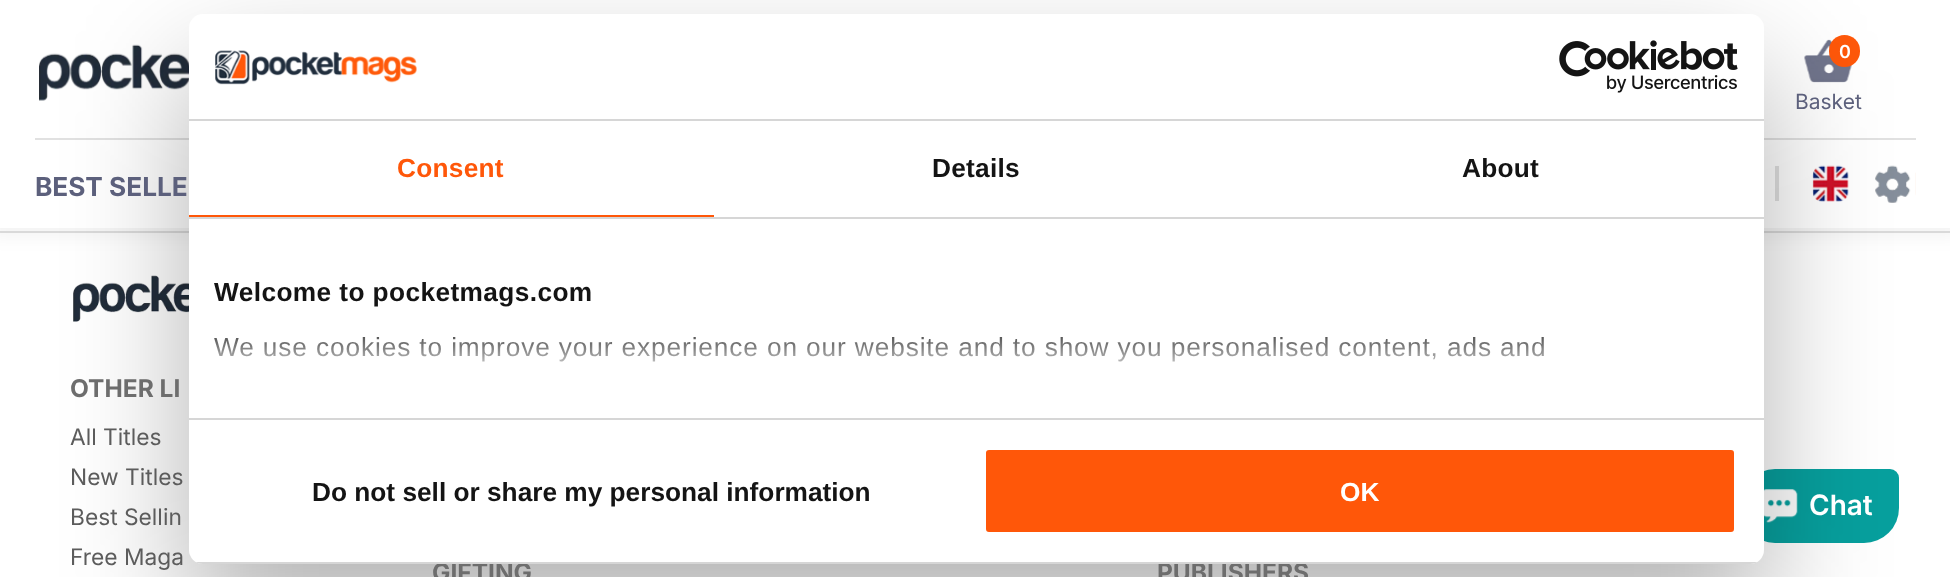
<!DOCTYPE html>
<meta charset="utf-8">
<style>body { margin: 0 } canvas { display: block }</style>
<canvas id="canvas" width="1950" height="577"></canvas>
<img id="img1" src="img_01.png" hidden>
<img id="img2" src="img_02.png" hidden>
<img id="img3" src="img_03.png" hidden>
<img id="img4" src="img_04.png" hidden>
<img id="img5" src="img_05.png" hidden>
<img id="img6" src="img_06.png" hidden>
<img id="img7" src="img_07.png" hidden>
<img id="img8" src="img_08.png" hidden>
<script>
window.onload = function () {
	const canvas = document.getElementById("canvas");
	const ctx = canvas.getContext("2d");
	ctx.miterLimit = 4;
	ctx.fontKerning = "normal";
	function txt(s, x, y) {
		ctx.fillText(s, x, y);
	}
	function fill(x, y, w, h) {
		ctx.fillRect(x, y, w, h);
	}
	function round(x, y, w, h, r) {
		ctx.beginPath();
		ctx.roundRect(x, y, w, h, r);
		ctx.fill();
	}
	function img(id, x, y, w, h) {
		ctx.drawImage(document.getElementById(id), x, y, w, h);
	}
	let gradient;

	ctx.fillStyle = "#FFFFFF";
	fill(0, 0, 1950, 577);
	ctx.fillStyle = "#E1E1E1";
	fill(0, 231, 1950, 2);
	ctx.fillStyle = "rgba(0, 0, 0, 0.05)";
	ctx.filter = "blur(9px)";
	ctx.beginPath();
	ctx.rect(-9, -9, 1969, 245);
	ctx.fill();
	ctx.filter = "none";
	ctx.fillStyle = "#FFFFFF";
	fill(0, 0, 1950, 228);
	ctx.fillStyle = "#E1E1E1";
	fill(35, 138, 1881, 2);
	img("img1", 39, 44, 150, 57);
	img("img2", 1804, 39, 49, 44);
	ctx.fillStyle = "#FF580A";
	round(1829, 35, 31, 32, 15.5);
	ctx.fillStyle = "#E1E1E1";
	fill(1775, 166, 4, 35);
	img("img3", 1812, 165, 37, 37);
	img("img4", 1875, 165, 41, 38);
	img("img5", 73, 275, 116, 47);
	ctx.fillStyle = "#07A09E";
	ctx.beginPath();
	ctx.roundRect(1740, 469, 159, 74, [35, 9, 35, 35]);
	ctx.fill();
	img("img6", 1764, 489, 34, 34);
	ctx.fillStyle = "rgba(0, 0, 0, 0.3)";
	ctx.filter = "blur(59.5px)";
	ctx.beginPath();
	ctx.roundRect(189, 70, 1575, 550, 14);
	ctx.fill();
	ctx.filter = "none";
	ctx.font = "600 18px Inter";
	ctx.fillStyle = "#FFFFFF";
	txt("0", 1839, 58);
	ctx.font = "21px Inter";
	ctx.fillStyle = "#5C607C";
	txt("Basket", 1795, 109);
	ctx.font = "bold 26.25px Inter";
	txt("BEST SELLE", 35, 196);
	ctx.font = "bold 24.5px Inter";
	ctx.fillStyle = "#6D6D6D";
	txt("OTHER LI", 70, 397);
	ctx.font = "22.75px Inter";
	ctx.fillStyle = "#5C5C5C";
	txt("All Titles", 70, 445);
	txt("New Titles", 70, 485);
	txt("Best Sellin", 70, 525);
	txt("Free Maga", 70, 565);
	ctx.font = "bold 24.5px Inter";
	ctx.fillStyle = "#6D6D6D";
	txt("GIFTING", 432, 581);
	txt("PUBLISHERS", 1157, 581);
	ctx.font = "600 28px Inter";
	ctx.fillStyle = "#FFFFFF";
	txt("Chat", 1809, 515);
	round(189, 14, 1575, 550, 14);
	ctx.fillStyle = "#D6D6D6";
	fill(189, 119, 1575, 2);
	img("img7", 215, 50, 202, 35);
	img("img8", 1559, 40, 179, 53);
	fill(189, 217, 1575, 2);
	ctx.fillStyle = "#FF5709";
	fill(189, 215, 525, 2);
	ctx.letterSpacing = "0.25px";
	ctx.font = "bold 26.25px Liberation Sans";
	txt("Consent", 397, 177);
	ctx.fillStyle = "#141414";
	txt("Details", 932, 177);
	txt("About", 1462, 177);
	ctx.fillStyle = "#D6D6D6";
	fill(189, 418, 1575, 2);
	ctx.letterSpacing = "0.4px";
	ctx.fillStyle = "#141414";
	txt("Welcome to pocketmags.com", 214, 301);
	ctx.letterSpacing = "0.88px";
	ctx.font = "26.25px Liberation Sans";
	txt("We use cookies to improve your experience on our website and to show you personalised content, ads and", 214, 356);
	gradient = ctx.createLinearGradient(965, 418, 965, 319);
	gradient.addColorStop(0, "#FFFFFF");
	gradient.addColorStop(0.5, "rgba(255, 255, 255, 0.8)");
	gradient.addColorStop(1, "rgba(255, 255, 255, 0)");
	ctx.fillStyle = gradient;
	fill(214, 337, 1330, 25);
	ctx.save();
	ctx.beginPath();
	ctx.roundRect(189, 14, 1575, 550, 14);
	ctx.clip();
	ctx.fillStyle = "#D6D6D6";
	fill(189, 562, 1575, 2);
	ctx.restore();
	ctx.letterSpacing = "0px";
	ctx.font = "bold 26.25px Liberation Sans";
	ctx.fillStyle = "#141414";
	txt("Do not sell or share my personal information", 312, 501);
	ctx.fillStyle = "#FF5709";
	ctx.beginPath();
	ctx.roundRect(984, 448, 752, 86, 5);
	ctx.fill();
	ctx.strokeStyle = "#FFFFFF";
	ctx.lineWidth = 4;
	ctx.stroke();
	ctx.fillStyle = "#FFFFFF";
	txt("OK", 1340, 501);
};
</script>
